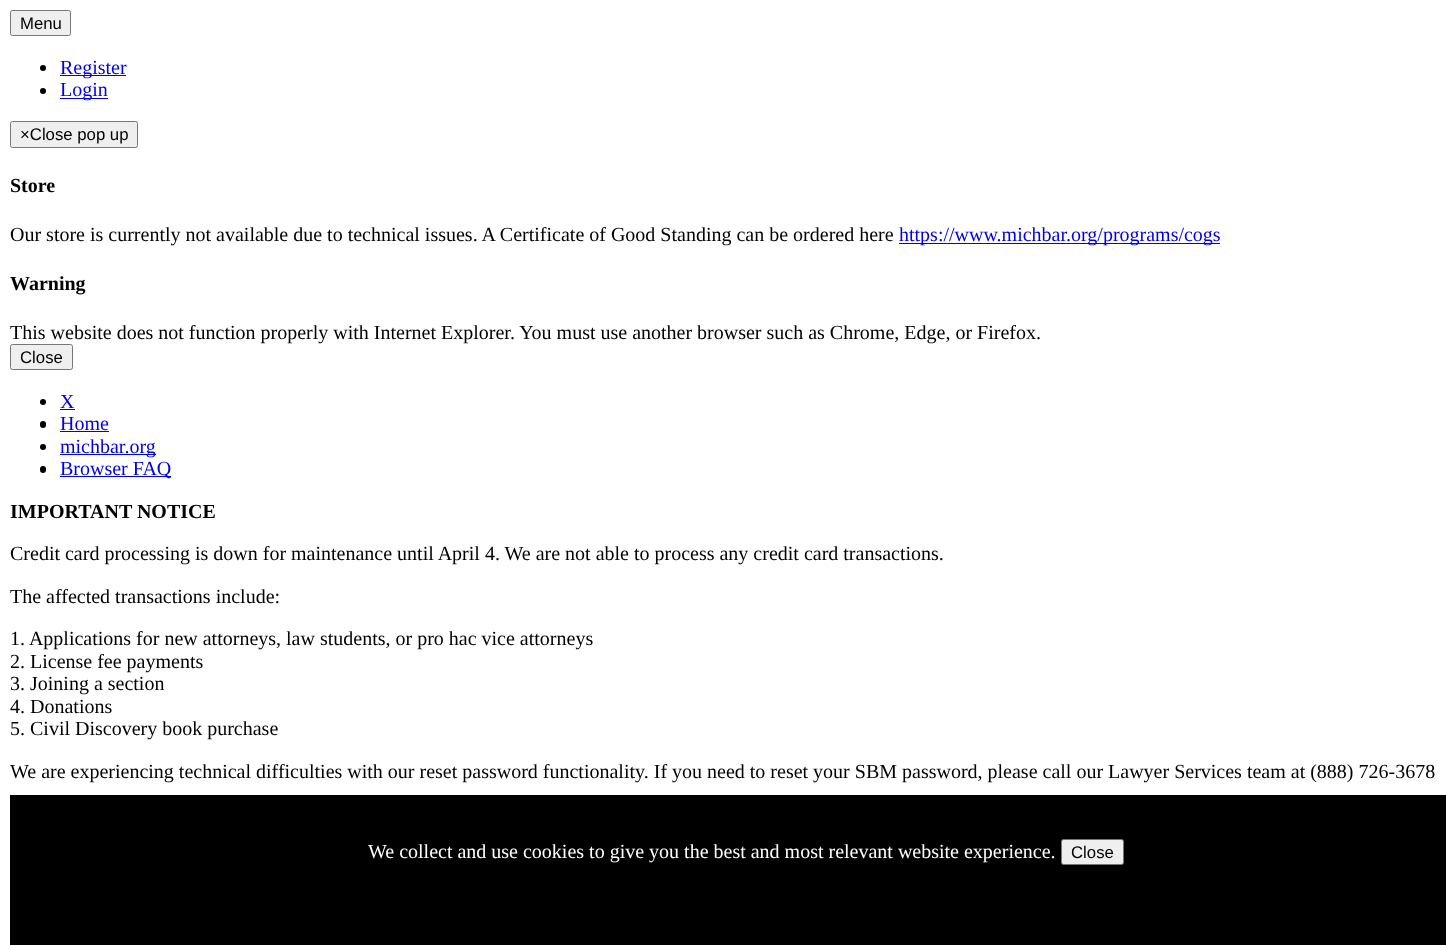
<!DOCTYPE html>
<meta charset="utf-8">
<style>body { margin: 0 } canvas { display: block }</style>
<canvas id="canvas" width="1446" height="945"></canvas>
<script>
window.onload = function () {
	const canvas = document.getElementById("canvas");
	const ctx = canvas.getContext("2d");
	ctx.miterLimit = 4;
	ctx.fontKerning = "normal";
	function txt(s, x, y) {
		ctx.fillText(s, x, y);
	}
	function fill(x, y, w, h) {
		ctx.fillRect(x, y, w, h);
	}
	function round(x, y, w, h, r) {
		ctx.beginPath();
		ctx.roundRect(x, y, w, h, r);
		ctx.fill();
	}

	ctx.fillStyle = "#FFFFFF";
	fill(0, 0, 1446, 945);
	ctx.fillStyle = "#EFEFEF";
	ctx.beginPath();
	ctx.roundRect(10.5, 10.5, 60, 25, 2);
	ctx.fill();
	ctx.strokeStyle = "#767676";
	ctx.stroke();
	ctx.fillStyle = "#000000";
	ctx.beginPath();
	ctx.arc(43, 68, 3, 0, Math.PI * 2);
	ctx.fill();
	ctx.fillStyle = "#0000EE";
	fill(60, 75, 66, 1);
	ctx.fillStyle = "#000000";
	ctx.beginPath();
	ctx.arc(43, 91, 3, 0, Math.PI * 2);
	ctx.fill();
	ctx.fillStyle = "#0000EE";
	fill(60, 98, 48, 1);
	ctx.fillStyle = "#EFEFEF";
	ctx.beginPath();
	ctx.roundRect(10.5, 121.5, 127, 26, 2);
	ctx.fill();
	ctx.stroke();
	ctx.fillStyle = "#0000EE";
	fill(899, 243, 321, 1);
	ctx.fillStyle = "#EFEFEF";
	ctx.beginPath();
	ctx.roundRect(10.5, 344.5, 62, 25, 2);
	ctx.fill();
	ctx.stroke();
	ctx.fillStyle = "#000000";
	ctx.beginPath();
	ctx.arc(43, 402, 3, 0, Math.PI * 2);
	ctx.fill();
	ctx.fillStyle = "#0000EE";
	fill(60, 409, 15, 1);
	ctx.fillStyle = "#000000";
	round(40, 421, 6, 7, 3);
	ctx.fillStyle = "#0000EE";
	fill(60, 431, 49, 1);
	ctx.fillStyle = "#000000";
	ctx.beginPath();
	ctx.arc(43, 447, 3, 0, Math.PI * 2);
	ctx.fill();
	ctx.fillStyle = "#0000EE";
	fill(60, 454, 96, 1);
	ctx.fillStyle = "#000000";
	round(40, 466, 6, 7, 3);
	ctx.fillStyle = "#0000EE";
	fill(60, 476, 111, 1);
	ctx.fillStyle = "#000000";
	fill(10, 795, 1436, 150);
	ctx.fillStyle = "#EFEFEF";
	ctx.beginPath();
	ctx.roundRect(1061.5, 839.5, 62, 25, 2);
	ctx.fill();
	ctx.stroke();
	ctx.font = "16.75px Liberation Sans";
	ctx.fillStyle = "#000000";
	txt("Menu", 20, 29);
	ctx.font = "20px Liberation Serif";
	ctx.fillStyle = "#0000EE";
	txt("Register", 60, 74);
	txt("Login", 60, 96);
	ctx.font = "16.75px Liberation Sans";
	ctx.fillStyle = "#000000";
	txt("×Close pop up", 20, 140);
	ctx.font = "bold 20px Liberation Serif";
	txt("Store", 10, 192);
	ctx.font = "20px Liberation Serif";
	txt("Our store is currently not available due to technical issues. A Certificate of Good Standing can be ordered here", 10, 241);
	ctx.fillStyle = "#0000EE";
	txt("https://www.michbar.org/programs/cogs", 899, 241);
	ctx.font = "bold 20px Liberation Serif";
	ctx.fillStyle = "#000000";
	txt("Warning", 10, 290);
	ctx.font = "20px Liberation Serif";
	txt("This website does not function properly with Internet Explorer. You must use another browser such as Chrome, Edge, or Firefox.", 10, 339);
	ctx.font = "16.75px Liberation Sans";
	txt("Close", 20, 363);
	ctx.font = "20px Liberation Serif";
	ctx.fillStyle = "#0000EE";
	txt("X", 60, 408);
	txt("Home", 60, 430);
	txt("michbar.org", 60, 453);
	txt("Browser FAQ", 60, 475);
	ctx.font = "bold 20px Liberation Serif";
	ctx.fillStyle = "#000000";
	txt("IMPORTANT NOTICE", 10, 518);
	ctx.font = "20px Liberation Serif";
	txt("Credit card processing is down for maintenance until April 4. We are not able to process any credit card transactions.", 10, 560);
	txt("The affected transactions include:", 10, 603);
	txt("1. Applications for new attorneys, law students, or pro hac vice attorneys", 10, 645);
	txt("2. License fee payments", 10, 668);
	txt("3. Joining a section", 10, 690);
	txt("4. Donations", 10, 713);
	txt("5. Civil Discovery book purchase", 10, 735);
	txt("We are experiencing technical difficulties with our reset password functionality. If you need to reset your SBM password, please call our Lawyer Services team at (888) 726-3678", 10, 778);
	ctx.fillStyle = "#FFFFFF";
	txt("We collect and use cookies to give you the best and most relevant website experience.", 368, 858);
	ctx.font = "16.75px Liberation Sans";
	ctx.fillStyle = "#000000";
	txt("Close", 1071, 858);
};
</script>
